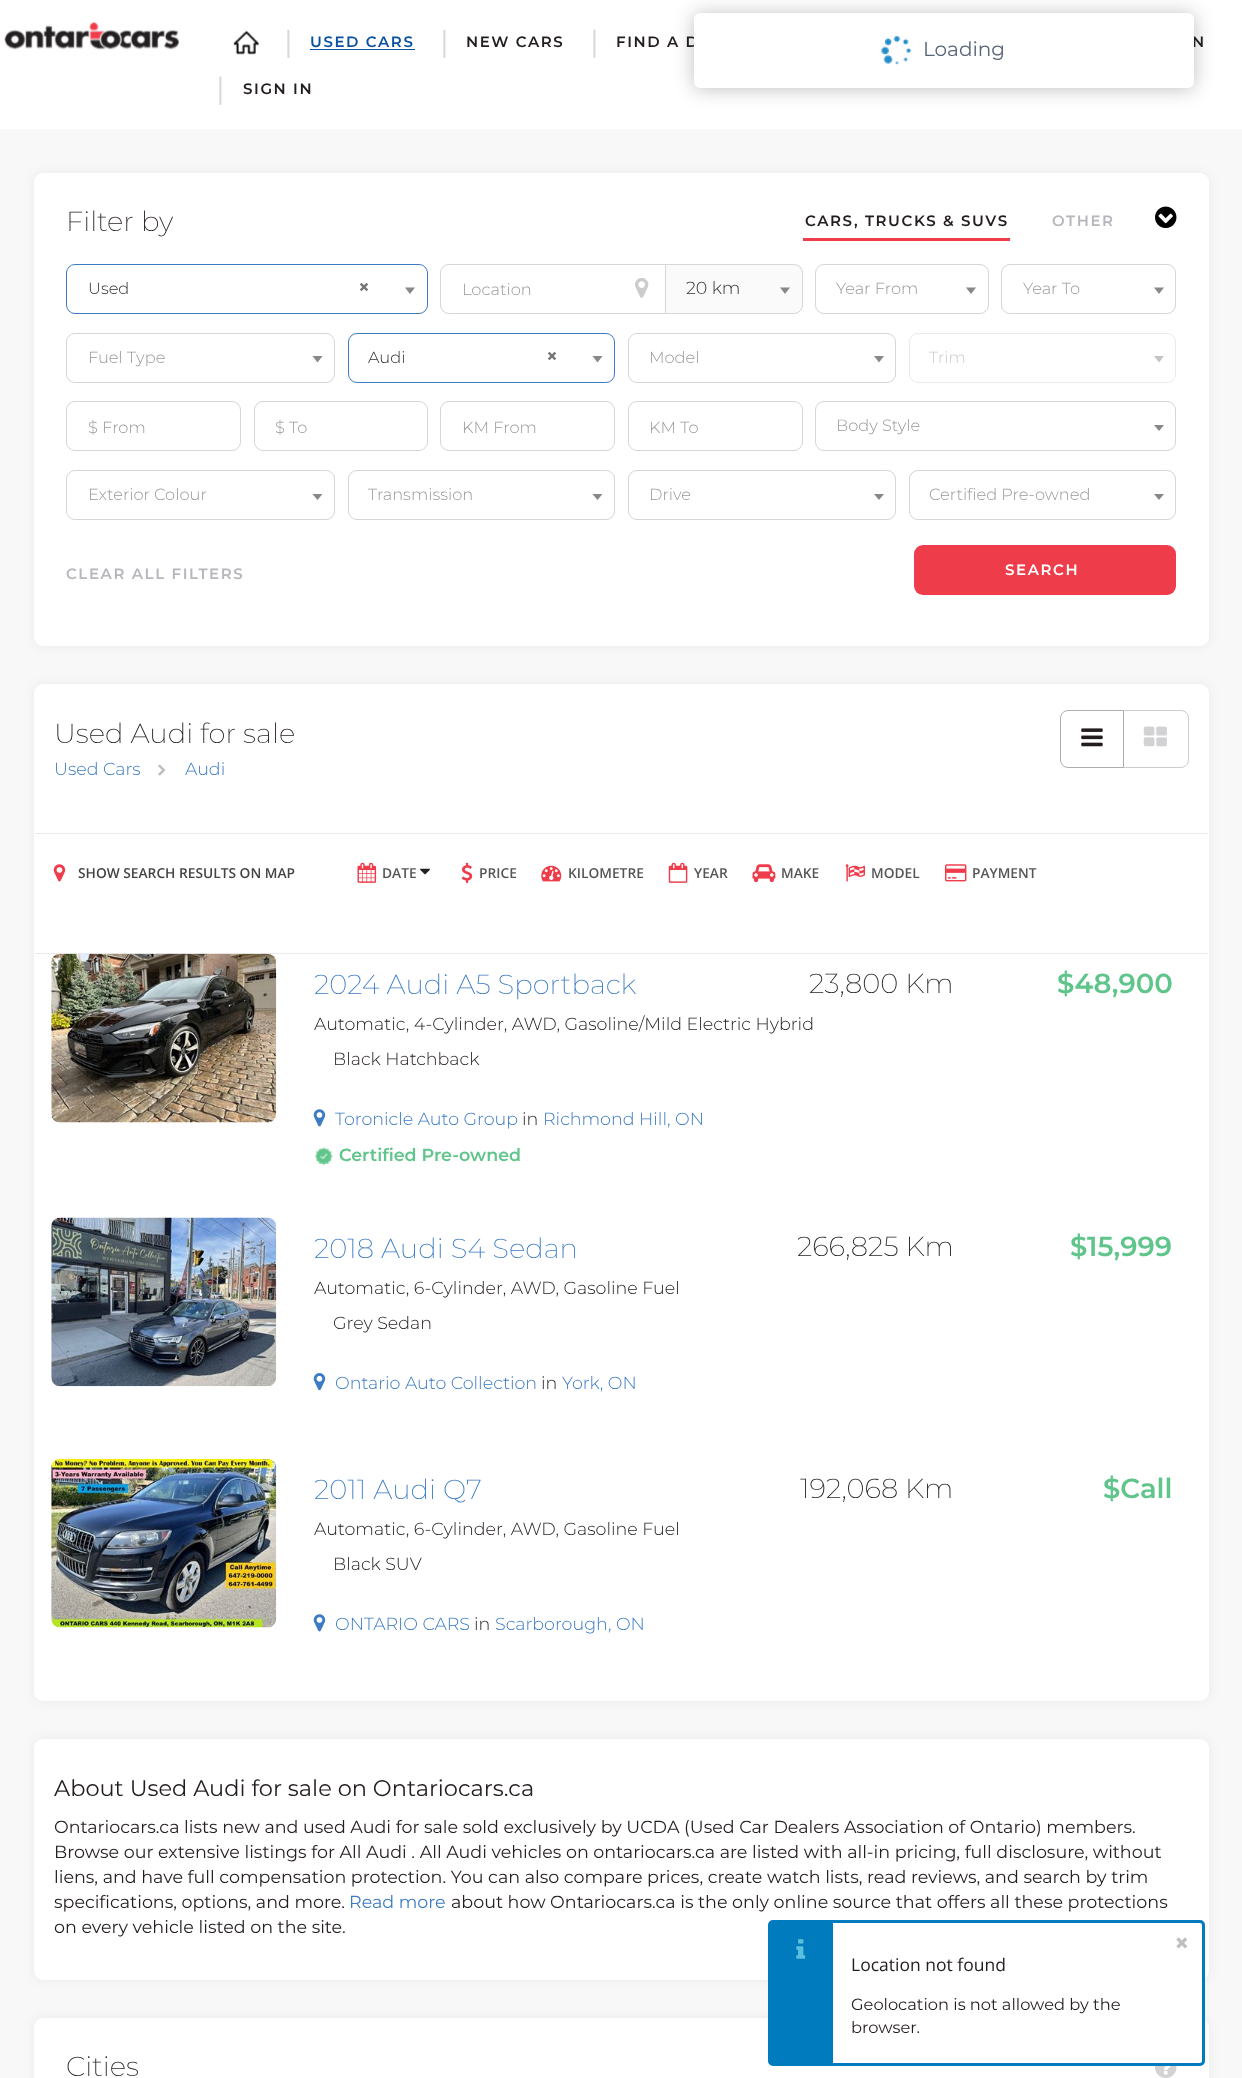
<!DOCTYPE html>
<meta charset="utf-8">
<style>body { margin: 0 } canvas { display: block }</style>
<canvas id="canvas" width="1242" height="2078"></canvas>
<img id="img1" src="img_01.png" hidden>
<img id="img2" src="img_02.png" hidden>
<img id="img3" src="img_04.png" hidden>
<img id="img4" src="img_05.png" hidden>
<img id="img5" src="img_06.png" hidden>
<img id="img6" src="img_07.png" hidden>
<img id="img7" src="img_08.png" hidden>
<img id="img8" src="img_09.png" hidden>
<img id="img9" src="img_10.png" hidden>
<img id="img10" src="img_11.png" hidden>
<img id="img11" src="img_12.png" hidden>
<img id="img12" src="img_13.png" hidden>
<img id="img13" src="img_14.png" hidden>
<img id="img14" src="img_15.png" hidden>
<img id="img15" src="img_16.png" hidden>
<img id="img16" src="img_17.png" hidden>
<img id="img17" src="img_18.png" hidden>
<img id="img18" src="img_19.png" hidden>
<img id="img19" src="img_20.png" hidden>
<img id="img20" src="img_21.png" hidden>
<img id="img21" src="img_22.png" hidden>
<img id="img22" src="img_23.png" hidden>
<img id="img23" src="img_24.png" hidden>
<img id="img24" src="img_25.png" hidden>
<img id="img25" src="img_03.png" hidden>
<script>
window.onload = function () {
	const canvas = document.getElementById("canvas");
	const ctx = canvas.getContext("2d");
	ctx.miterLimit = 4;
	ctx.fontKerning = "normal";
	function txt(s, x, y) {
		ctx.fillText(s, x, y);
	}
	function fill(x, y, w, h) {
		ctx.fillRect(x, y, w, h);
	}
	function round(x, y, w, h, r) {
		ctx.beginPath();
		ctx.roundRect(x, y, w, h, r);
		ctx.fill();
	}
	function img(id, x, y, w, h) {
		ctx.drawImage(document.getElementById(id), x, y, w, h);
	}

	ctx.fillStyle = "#F8F8F8";
	fill(0, 0, 1242, 2078);
	ctx.fillStyle = "#FFFFFF";
	fill(0, 0, 1242, 129);
	img("img1", 4, 22, 175, 28);
	img("img2", 233, 30, 26, 25);
	ctx.fillStyle = "#0A529F";
	fill(310, 49, 105, 1);
	ctx.fillStyle = "rgba(0, 0, 0, 0.25)";
	ctx.filter = "blur(9.5px)";
	ctx.beginPath();
	ctx.roundRect(694, 14, 500, 75, 6);
	ctx.fill();
	ctx.filter = "none";
	ctx.fillStyle = "rgba(0, 0, 0, 0.06)";
	ctx.filter = "blur(6px)";
	ctx.beginPath();
	ctx.roundRect(34, 173, 1175, 473, 9);
	ctx.fill();
	ctx.filter = "none";
	ctx.fillStyle = "#FFFFFF";
	round(34, 173, 1175, 473, 9);
	ctx.fillStyle = "#EF3C4B";
	fill(803, 238, 207, 3);
	img("img3", 1155, 206, 22, 22);
	ctx.beginPath();
	ctx.roundRect(66.5, 264.5, 361, 49, 8.5);
	ctx.strokeStyle = "#3D7BC4";
	ctx.stroke();
	ctx.fillStyle = "#888888";
	ctx.beginPath();
	ctx.moveTo(405, 287.5);
	ctx.lineTo(415, 287.5);
	ctx.lineTo(410, 294);
	ctx.closePath();
	ctx.fill();
	ctx.beginPath();
	ctx.roundRect(440.5, 264.5, 297, 49, 8.5);
	ctx.strokeStyle = "#D5D5DA";
	ctx.stroke();
	img("img4", 635, 278, 14, 20);
	ctx.fillStyle = "#FAFAFB";
	ctx.beginPath();
	ctx.roundRect(665.5, 264.5, 137, 49, [0, 8.5, 8.5, 0]);
	ctx.fill();
	ctx.stroke();
	ctx.fillStyle = "#888888";
	ctx.beginPath();
	ctx.moveTo(780, 287.5);
	ctx.lineTo(790, 287.5);
	ctx.lineTo(785, 294);
	ctx.closePath();
	ctx.fill();
	ctx.beginPath();
	ctx.roundRect(815.5, 264.5, 173, 49, 8.5);
	ctx.stroke();
	ctx.beginPath();
	ctx.moveTo(966, 287.5);
	ctx.lineTo(976, 287.5);
	ctx.lineTo(971, 294);
	ctx.closePath();
	ctx.fill();
	ctx.beginPath();
	ctx.roundRect(1001.5, 264.5, 174, 49, 8.5);
	ctx.stroke();
	ctx.beginPath();
	ctx.moveTo(1154, 287.5);
	ctx.lineTo(1164, 287.5);
	ctx.lineTo(1159, 294);
	ctx.closePath();
	ctx.fill();
	ctx.beginPath();
	ctx.roundRect(66.5, 333.5, 268, 49, 8.5);
	ctx.stroke();
	ctx.beginPath();
	ctx.moveTo(312.5, 356);
	ctx.lineTo(322.5, 356);
	ctx.lineTo(317.5, 362.5);
	ctx.closePath();
	ctx.fill();
	ctx.beginPath();
	ctx.roundRect(348.5, 333.5, 266, 49, 8.5);
	ctx.strokeStyle = "#3D7BC4";
	ctx.stroke();
	ctx.beginPath();
	ctx.moveTo(592.5, 356);
	ctx.lineTo(602.5, 356);
	ctx.lineTo(597.5, 362.5);
	ctx.closePath();
	ctx.fill();
	ctx.beginPath();
	ctx.roundRect(628.5, 333.5, 267, 49, 8.5);
	ctx.strokeStyle = "#D5D5DA";
	ctx.stroke();
	ctx.beginPath();
	ctx.moveTo(874, 356);
	ctx.lineTo(884, 356);
	ctx.lineTo(879, 362.5);
	ctx.closePath();
	ctx.fill();
	ctx.beginPath();
	ctx.roundRect(909.5, 333.5, 266, 49, 8.5);
	ctx.strokeStyle = "#EAEAED";
	ctx.stroke();
	ctx.fillStyle = "#C4C4C4";
	ctx.beginPath();
	ctx.moveTo(1154, 356);
	ctx.lineTo(1164, 356);
	ctx.lineTo(1159, 362.5);
	ctx.closePath();
	ctx.fill();
	ctx.beginPath();
	ctx.roundRect(66.5, 401.5, 174, 49, 8.5);
	ctx.strokeStyle = "#D5D5DA";
	ctx.stroke();
	ctx.beginPath();
	ctx.roundRect(254.5, 401.5, 173, 49, 8.5);
	ctx.stroke();
	ctx.beginPath();
	ctx.roundRect(440.5, 401.5, 174, 49, 8.5);
	ctx.stroke();
	ctx.beginPath();
	ctx.roundRect(628.5, 401.5, 174, 49, 8.5);
	ctx.stroke();
	ctx.beginPath();
	ctx.roundRect(815.5, 401.5, 360, 49, 8.5);
	ctx.stroke();
	ctx.fillStyle = "#888888";
	ctx.beginPath();
	ctx.moveTo(1154, 425);
	ctx.lineTo(1164, 425);
	ctx.lineTo(1159, 431);
	ctx.closePath();
	ctx.fill();
	ctx.beginPath();
	ctx.roundRect(66.5, 470.5, 268, 49, 8.5);
	ctx.stroke();
	ctx.beginPath();
	ctx.moveTo(312.5, 494);
	ctx.lineTo(322.5, 494);
	ctx.lineTo(317.5, 500);
	ctx.closePath();
	ctx.fill();
	ctx.beginPath();
	ctx.roundRect(348.5, 470.5, 266, 49, 8.5);
	ctx.stroke();
	ctx.beginPath();
	ctx.moveTo(592.5, 494);
	ctx.lineTo(602.5, 494);
	ctx.lineTo(597.5, 500);
	ctx.closePath();
	ctx.fill();
	ctx.beginPath();
	ctx.roundRect(628.5, 470.5, 267, 49, 8.5);
	ctx.stroke();
	ctx.beginPath();
	ctx.moveTo(874, 494);
	ctx.lineTo(884, 494);
	ctx.lineTo(879, 500);
	ctx.closePath();
	ctx.fill();
	ctx.beginPath();
	ctx.roundRect(909.5, 470.5, 266, 49, 8.5);
	ctx.stroke();
	ctx.beginPath();
	ctx.moveTo(1154, 494);
	ctx.lineTo(1164, 494);
	ctx.lineTo(1159, 500);
	ctx.closePath();
	ctx.fill();
	ctx.fillStyle = "#EF3C4B";
	round(914, 545, 262, 50, 9);
	ctx.fillStyle = "rgba(0, 0, 0, 0.06)";
	ctx.filter = "blur(6px)";
	ctx.beginPath();
	ctx.roundRect(34, 684, 1175, 1017, 9);
	ctx.fill();
	ctx.filter = "none";
	ctx.fillStyle = "#FFFFFF";
	round(34, 684, 1175, 1017, 9);
	ctx.beginPath();
	ctx.roundRect(1123.5, 710.5, 65, 57, [0, 7.5, 7.5, 0]);
	ctx.strokeStyle = "#CCCCCC";
	ctx.stroke();
	ctx.beginPath();
	ctx.roundRect(1060.5, 710.5, 63, 57, [7.5, 0, 0, 7.5]);
	ctx.fill();
	ctx.strokeStyle = "#ADADAD";
	ctx.stroke();
	img("img5", 1081, 728, 22, 19);
	img("img6", 1143, 726, 24, 21);
	img("img7", 158, 764, 8, 12);
	ctx.fillStyle = "#EAEAEC";
	fill(35, 833, 1173, 1);
	fill(35, 953, 1173, 1);
	img("img8", 53, 864, 13, 18);
	img("img9", 357, 862, 20, 21);
	img("img10", 420, 868, 10, 7);
	img("img11", 461, 862, 12, 21);
	img("img12", 541, 865, 21, 17);
	img("img13", 668, 862, 20, 21);
	img("img14", 752, 864, 24, 19);
	img("img15", 845, 864, 20, 18);
	img("img16", 945, 864, 22, 18);
	img("img17", 51, 953, 226, 170);
	img("img18", 313, 1109, 13, 18);
	img("img19", 315, 1147, 18, 19);
	img("img20", 51, 1217, 226, 170);
	img("img21", 313, 1373, 13, 18);
	img("img22", 51, 1458, 226, 170);
	img("img18", 313, 1614, 13, 18);
	ctx.fillStyle = "rgba(0, 0, 0, 0.06)";
	ctx.filter = "blur(6px)";
	ctx.beginPath();
	ctx.roundRect(34, 1739, 1175, 241, 9);
	ctx.fill();
	ctx.filter = "none";
	ctx.fillStyle = "#FFFFFF";
	round(34, 1739, 1175, 241, 9);
	ctx.fillStyle = "rgba(0, 0, 0, 0.06)";
	ctx.filter = "blur(6px)";
	ctx.beginPath();
	ctx.roundRect(34, 2018, 1175, 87, 9);
	ctx.fill();
	ctx.filter = "none";
	ctx.fillStyle = "#FFFFFF";
	round(34, 2018, 1175, 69, 9);
	img("img23", 1155, 2066, 22, 12);
	ctx.beginPath();
	ctx.roundRect(769.5, 1921.5, 434, 143, 3.5);
	ctx.fill();
	ctx.strokeStyle = "#007BBD";
	ctx.lineWidth = 3;
	ctx.stroke();
	ctx.fillStyle = "#007BBD";
	fill(771, 1923, 62, 140);
	img("img24", 796, 1939, 10, 20);
	ctx.font = "30px Montserrat";
	ctx.fillStyle = "#D8D8D8";
	txt("|", 284, 52);
	ctx.letterSpacing = "1.6px";
	ctx.font = "600 15px Montserrat";
	ctx.fillStyle = "#0A529F";
	txt("USED CARS", 310, 47);
	ctx.letterSpacing = "0px";
	ctx.font = "30px Montserrat";
	ctx.fillStyle = "#D8D8D8";
	txt("|", 440, 52);
	ctx.letterSpacing = "1.6px";
	ctx.font = "600 15px Montserrat";
	ctx.fillStyle = "#231D20";
	txt("NEW CARS", 466, 47);
	ctx.letterSpacing = "0px";
	ctx.font = "30px Montserrat";
	ctx.fillStyle = "#D8D8D8";
	txt("|", 590, 52);
	ctx.letterSpacing = "1.6px";
	ctx.font = "600 15px Montserrat";
	ctx.fillStyle = "#231D20";
	txt("FIND A D", 616, 47);
	txt("N", 1192, 47);
	ctx.letterSpacing = "0px";
	ctx.font = "30px Montserrat";
	ctx.fillStyle = "#D8D8D8";
	txt("|", 216, 99);
	ctx.letterSpacing = "1.6px";
	ctx.font = "600 15px Montserrat";
	ctx.fillStyle = "#231D20";
	txt("SIGN IN", 243, 94);
	ctx.fillStyle = "#FFFFFF";
	round(694, 13, 500, 75, 6);
	img("img25", 881, 35, 31, 30);
	ctx.letterSpacing = "0px";
	ctx.font = "20px Montserrat";
	ctx.fillStyle = "#596679";
	txt("Loading", 923, 56);
	ctx.font = "200 27.5px Montserrat";
	ctx.fillStyle = "#231D20";
	txt("Filter by", 66, 231);
	ctx.letterSpacing = "1.6px";
	ctx.font = "600 15px Montserrat";
	txt("CARS, TRUCKS & SUVS", 805, 226);
	ctx.fillStyle = "#B6B6BD";
	txt("OTHER", 1052, 226);
	ctx.letterSpacing = "0px";
	ctx.font = "300 16.25px Montserrat";
	ctx.fillStyle = "#303030";
	txt("Used", 88, 294);
	ctx.font = "bold 20px Montserrat";
	ctx.fillStyle = "#777777";
	txt("×", 358, 294);
	ctx.font = "300 16.25px Montserrat";
	ctx.fillStyle = "#999999";
	txt("Location", 462, 295);
	ctx.font = "300 17.5px Montserrat";
	ctx.fillStyle = "#303030";
	txt("20 km", 686, 294);
	ctx.font = "300 16.25px Montserrat";
	ctx.fillStyle = "#999999";
	txt("Year From", 836, 294);
	txt("Year To", 1023, 294);
	txt("Fuel Type", 88, 363);
	ctx.fillStyle = "#303030";
	txt("Audi", 368, 363);
	ctx.font = "bold 20px Montserrat";
	ctx.fillStyle = "#777777";
	txt("×", 546, 363);
	ctx.font = "300 16.25px Montserrat";
	ctx.fillStyle = "#999999";
	txt("Model", 649, 363);
	ctx.fillStyle = "#CCCCCC";
	txt("Trim", 929, 363);
	ctx.fillStyle = "#999999";
	txt("$ From", 88, 433);
	txt("$ To", 275, 433);
	txt("KM From", 462, 433);
	txt("KM To", 649, 433);
	txt("Body Style", 836, 431);
	txt("Exterior Colour", 88, 500);
	txt("Transmission", 368, 500);
	txt("Drive", 649, 500);
	txt("Certified Pre-owned", 929, 500);
	ctx.letterSpacing = "1.6px";
	ctx.font = "600 15px Montserrat";
	ctx.fillStyle = "#B6B6BD";
	txt("CLEAR ALL FILTERS", 66, 579);
	ctx.fillStyle = "#FFFFFF";
	txt("SEARCH", 1005, 575);
	ctx.letterSpacing = "0px";
	ctx.font = "200 27.5px Montserrat";
	ctx.fillStyle = "#231D20";
	txt("Used Audi for sale", 54, 743);
	ctx.font = "300 17.5px Montserrat";
	ctx.fillStyle = "#3D7BC4";
	txt("Used Cars", 54, 775);
	txt("Audi", 185, 775);
	ctx.font = "600 13.75px Open Sans";
	ctx.fillStyle = "#444444";
	txt("SHOW SEARCH RESULTS ON MAP", 78, 878);
	ctx.fillStyle = "#555555";
	txt("DATE", 382, 878);
	txt("PRICE", 479, 878);
	txt("KILOMETRE", 568, 878);
	txt("YEAR", 694, 878);
	txt("MAKE", 781, 878);
	txt("MODEL", 871, 878);
	txt("PAYMENT", 972, 878);
	ctx.font = "200 27.5px Montserrat";
	ctx.fillStyle = "#3D7BC4";
	txt("2024 Audi A5 Sportback", 314, 994);
	ctx.fillStyle = "#231D20";
	txt("23,800 Km", 809, 993);
	ctx.font = "600 27.5px Montserrat";
	ctx.fillStyle = "#60C58B";
	txt("$48,900", 1057, 993);
	ctx.font = "300 17.5px Montserrat";
	ctx.fillStyle = "#231D20";
	txt("Automatic, 4-Cylinder, AWD, Gasoline/Mild Electric Hybrid", 314, 1030);
	txt("Black Hatchback", 333, 1065);
	ctx.fillStyle = "#3D7BC4";
	txt("Toronicle Auto Group", 335, 1125);
	ctx.fillStyle = "#231D20";
	txt("in", 522, 1125);
	ctx.fillStyle = "#3D7BC4";
	txt("Richmond Hill, ON", 543, 1125);
	ctx.font = "600 17.5px Montserrat";
	ctx.fillStyle = "#60C58B";
	txt("Certified Pre-owned", 339, 1161);
	ctx.font = "200 27.5px Montserrat";
	ctx.fillStyle = "#3D7BC4";
	txt("2018 Audi S4 Sedan", 314, 1258);
	ctx.fillStyle = "#231D20";
	txt("266,825 Km", 797, 1256);
	ctx.font = "600 27.5px Montserrat";
	ctx.fillStyle = "#60C58B";
	txt("$15,999", 1070, 1256);
	ctx.font = "300 17.5px Montserrat";
	ctx.fillStyle = "#231D20";
	txt("Automatic, 6-Cylinder, AWD, Gasoline Fuel", 314, 1294);
	txt("Grey Sedan", 333, 1329);
	ctx.fillStyle = "#3D7BC4";
	txt("Ontario Auto Collection", 335, 1389);
	ctx.fillStyle = "#231D20";
	txt("in", 541, 1389);
	ctx.fillStyle = "#3D7BC4";
	txt("York, ON", 562, 1389);
	ctx.font = "200 27.5px Montserrat";
	txt("2011 Audi Q7", 314, 1499);
	ctx.fillStyle = "#231D20";
	txt("192,068 Km", 800, 1498);
	ctx.font = "600 27.5px Montserrat";
	ctx.fillStyle = "#60C58B";
	txt("$Call", 1103, 1498);
	ctx.font = "300 17.5px Montserrat";
	ctx.fillStyle = "#231D20";
	txt("Automatic, 6-Cylinder, AWD, Gasoline Fuel", 314, 1535);
	txt("Black SUV", 333, 1570);
	ctx.fillStyle = "#3D7BC4";
	txt("ONTARIO CARS", 335, 1630);
	ctx.fillStyle = "#231D20";
	txt("in", 474, 1630);
	ctx.fillStyle = "#3D7BC4";
	txt("Scarborough, ON", 495, 1630);
	ctx.font = "22.5px Montserrat";
	ctx.fillStyle = "#231D20";
	txt("About Used Audi for sale on Ontariocars.ca", 54, 1796);
	ctx.font = "17.5px Montserrat";
	txt("Ontariocars.ca lists new and used Audi for sale sold exclusively by UCDA (Used Car Dealers Association of Ontario) members.", 54, 1833);
	txt("Browse our extensive listings for All Audi . All Audi vehicles on ontariocars.ca are listed with all-in pricing, full disclosure, without", 54, 1858);
	txt("liens, and have full compensation protection. You can also compare prices, create watch lists, read reviews, and search by trim", 54, 1883);
	txt("specifications, options, and more.", 54, 1908);
	ctx.fillStyle = "#3D7BC4";
	txt("Read more", 349, 1908);
	ctx.fillStyle = "#231D20";
	txt("about how Ontariocars.ca is the only online source that offers all these protections", 451, 1908);
	txt("on every vehicle listed on the site.", 54, 1933);
	ctx.font = "200 27.5px Montserrat";
	txt("Cities", 66, 2076);
	ctx.font = "bold 26px Montserrat";
	ctx.fillStyle = "#BFBFBF";
	txt("×", 1174, 1952);
	ctx.font = "17.5px Open Sans";
	ctx.fillStyle = "#231D20";
	txt("Location not found", 851, 1971);
	ctx.font = "16.25px Montserrat";
	txt("Geolocation is not allowed by the", 851, 2010);
	txt("browser.", 851, 2033);
};
</script>
